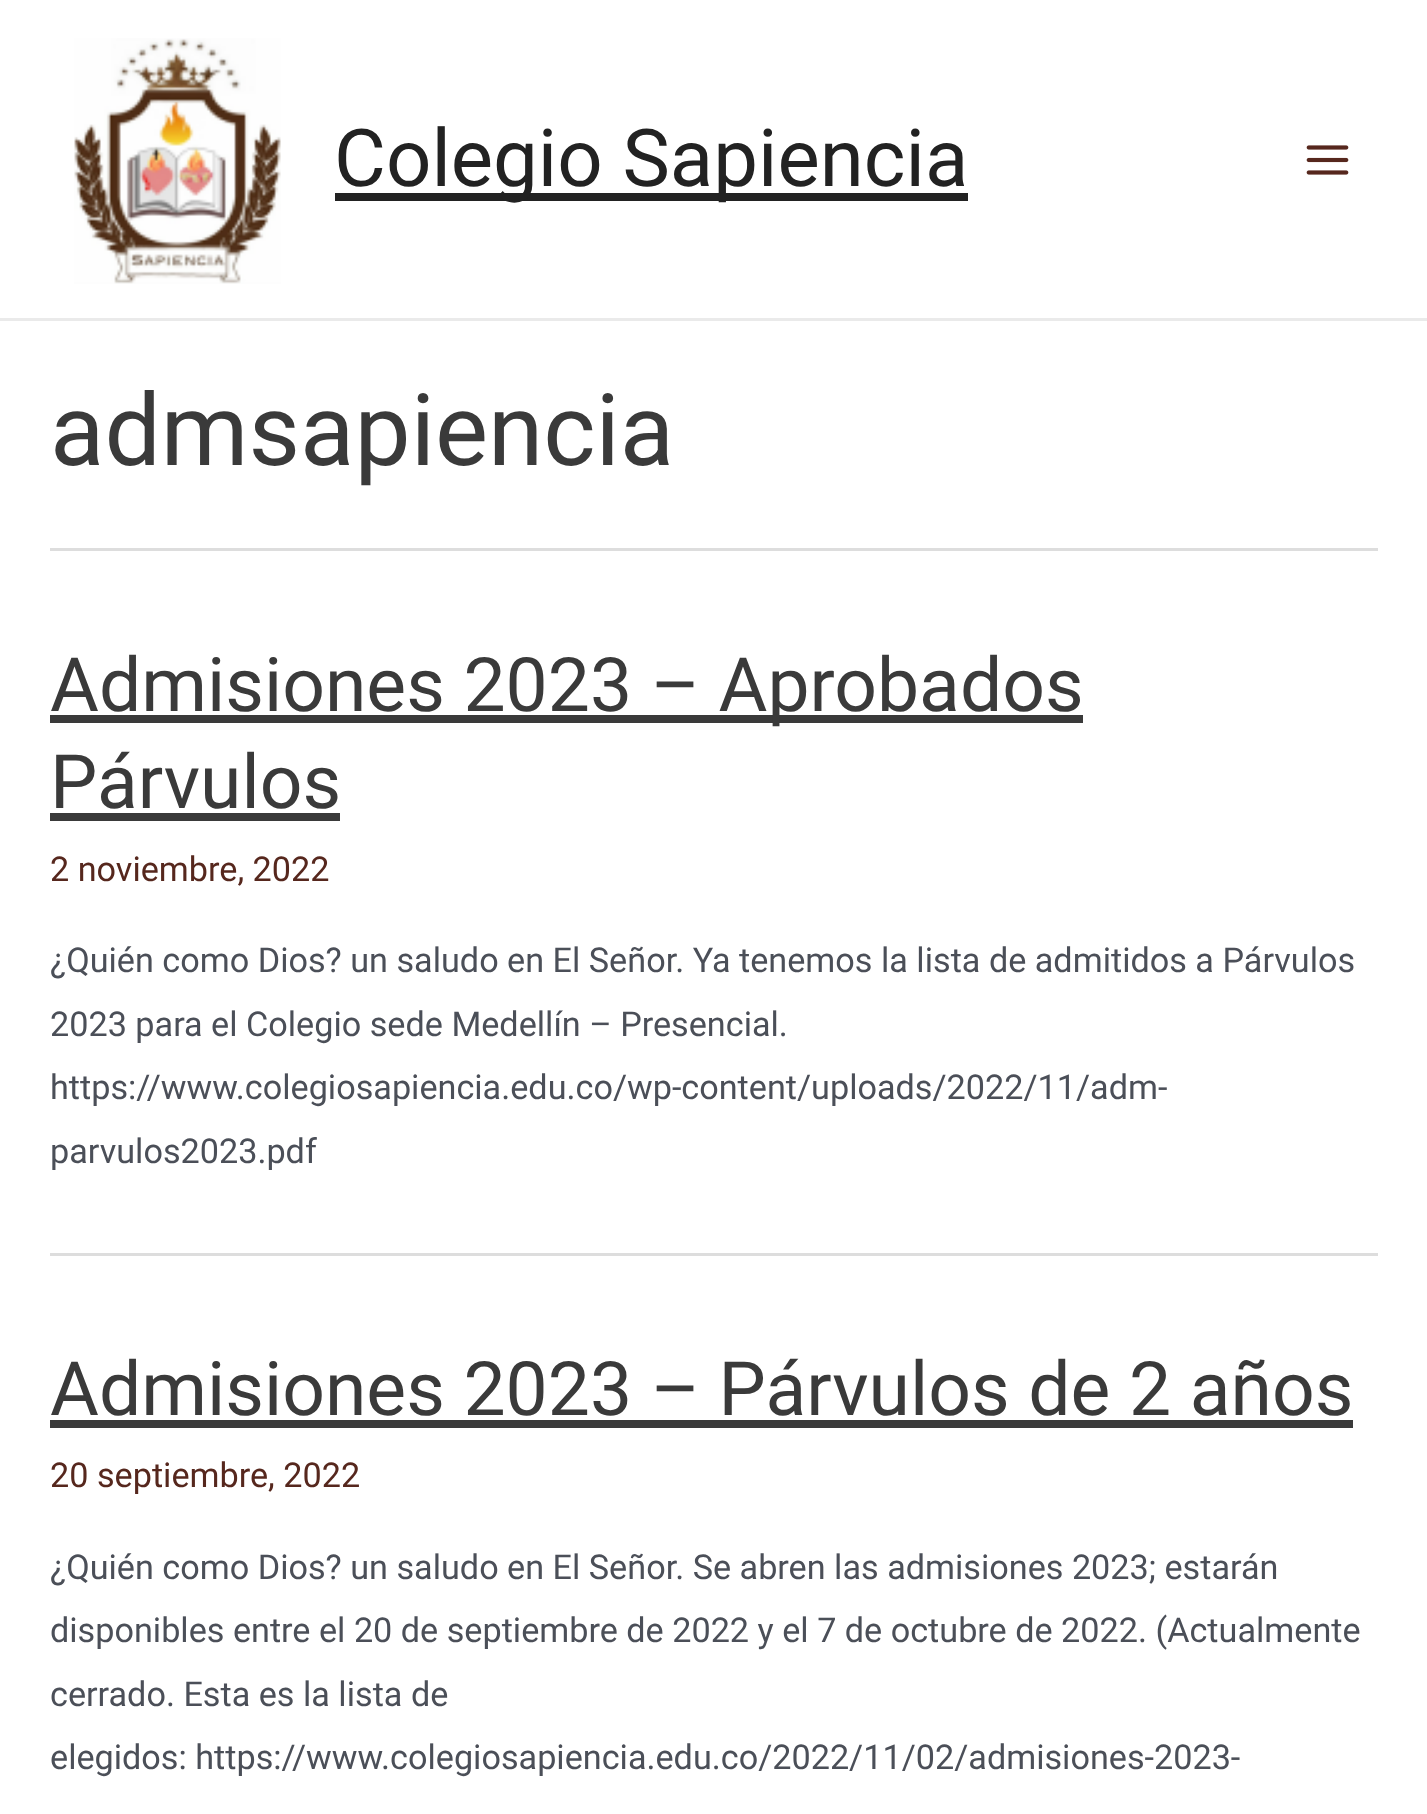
<!DOCTYPE html>
<meta charset="utf-8">
<style>body { margin: 0 } canvas { display: block }</style>
<canvas id="canvas" width="1427" height="1814"></canvas>
<img id="img1" src="img_01.png" hidden>
<img id="img2" src="img_02.png" hidden>
<script>
window.onload = function () {
	const canvas = document.getElementById("canvas");
	const ctx = canvas.getContext("2d");
	ctx.miterLimit = 4;
	ctx.fontKerning = "normal";
	function txt(s, x, y) {
		ctx.fillText(s, x, y);
	}
	function fill(x, y, w, h) {
		ctx.fillRect(x, y, w, h);
	}
	function img(id, x, y, w, h) {
		ctx.drawImage(document.getElementById(id), x, y, w, h);
	}

	ctx.fillStyle = "#FFFFFF";
	fill(0, 0, 1427, 1814);
	ctx.fillStyle = "#EAEAEA";
	fill(0, 318, 1427, 3);
	img("img1", 74, 38, 207, 246);
	ctx.fillStyle = "#222222";
	fill(335, 193, 633, 8);
	img("img2", 1306, 145, 43, 30);
	ctx.fillStyle = "#DDDDDD";
	fill(50, 548, 1328, 3);
	fill(50, 1253, 1328, 3);
	ctx.fillStyle = "#3A3A3A";
	fill(50, 715, 1033, 8);
	fill(50, 813, 290, 8);
	fill(50, 1420, 1303, 8);
	ctx.font = "79.75px Roboto";
	ctx.fillStyle = "#222222";
	txt("Colegio Sapiencia", 334, 186);
	ctx.font = "100px Roboto";
	ctx.fillStyle = "#3A3A3A";
	txt("admsapiencia", 50, 465);
	ctx.font = "75px Roboto";
	txt("Admisiones 2023 – Aprobados", 50, 711);
	txt("Párvulos", 50, 808);
	ctx.font = "34.2px Roboto";
	ctx.fillStyle = "#56271D";
	txt("2 noviembre, 2022", 50, 881);
	ctx.fillStyle = "#4B4F58";
	txt("¿Quién como Dios? un saludo en El Señor. Ya tenemos la lista de admitidos a Párvulos", 50, 972);
	txt("2023 para el Colegio sede Medellín – Presencial.", 50, 1036);
	txt("https://www.colegiosapiencia.edu.co/wp-content/uploads/2022/11/adm-", 50, 1099);
	txt("parvulos2023.pdf", 50, 1163);
	ctx.font = "75px Roboto";
	ctx.fillStyle = "#3A3A3A";
	txt("Admisiones 2023 – Párvulos de 2 años", 50, 1415);
	ctx.font = "34.2px Roboto";
	ctx.fillStyle = "#56271D";
	txt("20 septiembre, 2022", 50, 1487);
	ctx.fillStyle = "#4B4F58";
	txt("¿Quién como Dios? un saludo en El Señor. Se abren las admisiones 2023; estarán", 50, 1579);
	txt("disponibles entre el 20 de septiembre de 2022 y el 7 de octubre de 2022. (Actualmente", 50, 1642);
	txt("cerrado. Esta es la lista de", 50, 1706);
	txt("elegidos: https://www.colegiosapiencia.edu.co/2022/11/02/admisiones-2023-", 50, 1769);
};
</script>
